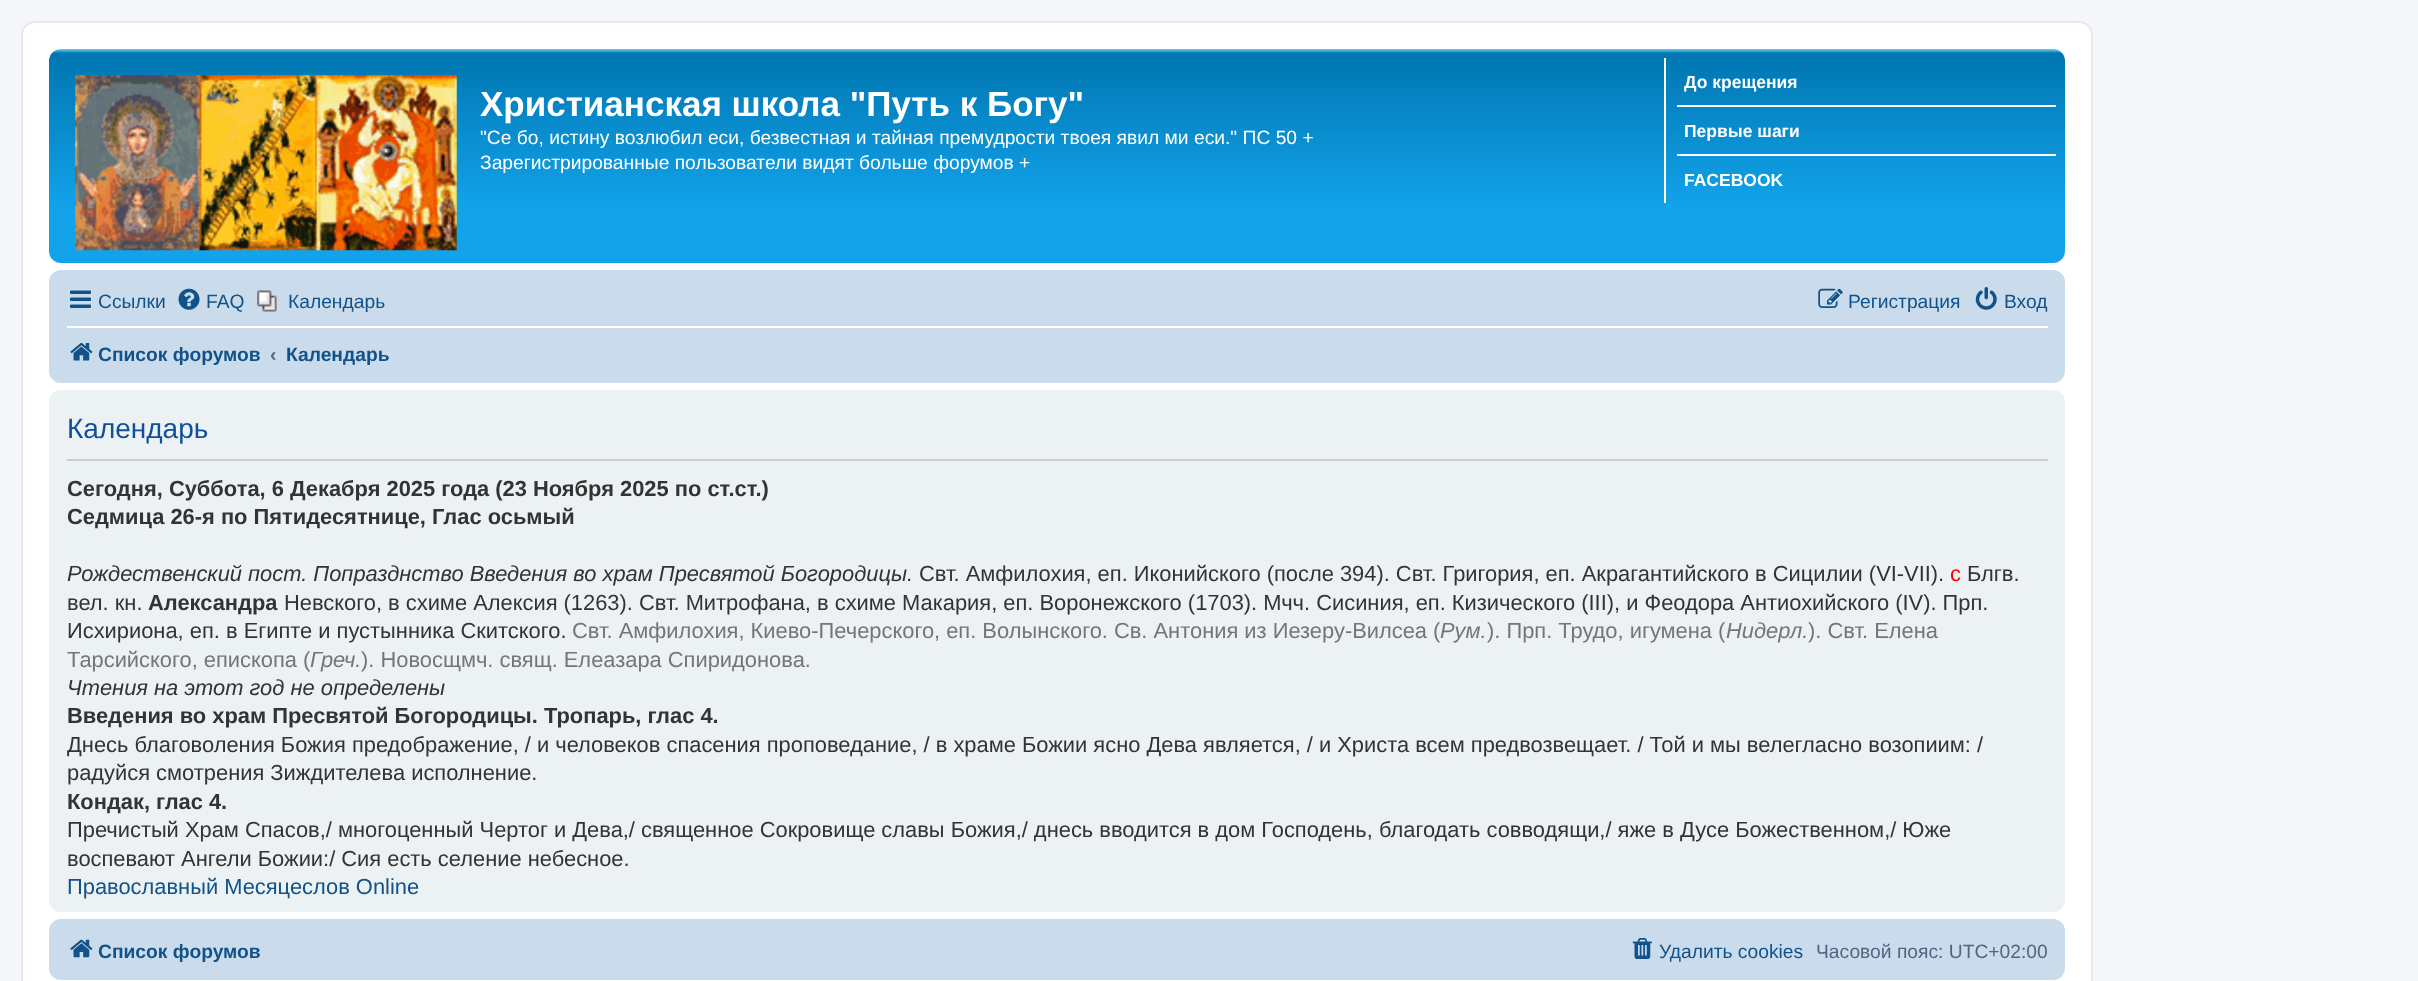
<!DOCTYPE html>
<meta charset="utf-8">
<style>body { margin: 0 } canvas { display: block }</style>
<canvas id="canvas" width="2418" height="981"></canvas>
<img id="img1" src="img_01.png" hidden>
<img id="img2" src="img_02.png" hidden>
<img id="img3" src="img_03.png" hidden>
<img id="img4" src="img_04.png" hidden>
<img id="img5" src="img_05.png" hidden>
<img id="img6" src="img_06.png" hidden>
<img id="img7" src="img_07.png" hidden>
<img id="img8" src="img_08.png" hidden>
<img id="img9" src="img_09.png" hidden>
<script>
window.onload = function () {
	const canvas = document.getElementById("canvas");
	const ctx = canvas.getContext("2d");
	ctx.miterLimit = 4;
	ctx.fontKerning = "normal";
	function txt(s, x, y) {
		ctx.fillText(s, x, y);
	}
	function fill(x, y, w, h) {
		ctx.fillRect(x, y, w, h);
	}
	function round(x, y, w, h, r) {
		ctx.beginPath();
		ctx.roundRect(x, y, w, h, r);
		ctx.fill();
	}
	function img(id, x, y, w, h) {
		ctx.drawImage(document.getElementById(id), x, y, w, h);
	}
	let gradient;

	ctx.fillStyle = "#F5F7FA";
	fill(0, 0, 2418, 981);
	ctx.fillStyle = "#FFFFFF";
	ctx.beginPath();
	ctx.roundRect(22, 22, 2070, 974, 13);
	ctx.fill();
	ctx.strokeStyle = "#E6E9ED";
	ctx.lineWidth = 2;
	ctx.stroke();
	gradient = ctx.createLinearGradient(1057, 49, 1057, 263);
	gradient.addColorStop(0, "#6ACEFF");
	gradient.addColorStop(0.02, "#0076B1");
	gradient.addColorStop(0.75, "#12A3EB");
	gradient.addColorStop(1, "#12A3EB");
	ctx.fillStyle = gradient;
	round(49, 49, 2016, 214, 12);
	img("img1", 75, 75, 382, 176);
	ctx.fillStyle = "#FFFFFF";
	fill(1664, 58, 2, 145);
	fill(1677, 105, 379, 2);
	fill(1677, 154, 379, 2);
	ctx.fillStyle = "#CADCEB";
	round(49, 270, 2016, 113, 12);
	img("img2", 70, 290, 21, 18);
	img("img3", 178, 288, 22, 22);
	img("img4", 257, 290, 20, 22);
	img("img5", 1818, 288, 25, 20);
	img("img6", 1975, 287, 22, 23);
	ctx.fillStyle = "#FFFFFF";
	fill(67, 326, 1981, 2);
	img("img7", 70, 343, 23, 18);
	ctx.fillStyle = "#ECF1F3";
	round(49, 390, 2016, 522, 12);
	ctx.fillStyle = "#CCCCCC";
	fill(67, 459, 1981, 2);
	ctx.fillStyle = "#CADCEB";
	round(49, 919, 2016, 61, 12);
	img("img8", 70, 939, 23, 19);
	img("img9", 1632, 938, 20, 21);
	ctx.font = "bold 35px Liberation Sans";
	ctx.fillStyle = "#FFFFFF";
	txt("Христианская школа \"Путь к Богу\"", 480, 116);
	ctx.font = "19.25px Liberation Sans";
	txt("\"Се бо, истину возлюбил еси, безвестная и тайная премудрости твоея явил ми еси.\" ПС 50 +", 480, 144);
	txt("Зарегистрированные пользователи видят больше форумов +", 480, 169);
	ctx.font = "bold 17.5px Liberation Sans";
	txt("До крещения", 1684, 88);
	txt("Первые шаги", 1684, 137);
	txt("FACEBOOK", 1684, 186);
	ctx.font = "19.25px Liberation Sans";
	ctx.fillStyle = "#105289";
	txt("Ссылки", 98, 308);
	txt("FAQ", 206, 308);
	txt("Календарь", 288, 308);
	txt("Регистрация", 1848, 308);
	txt("Вход", 2004, 308);
	ctx.font = "bold 19.25px Liberation Sans";
	txt("Список форумов", 98, 361);
	ctx.fillStyle = "#536482";
	txt("‹", 270, 361);
	ctx.fillStyle = "#105289";
	txt("Календарь", 286, 361);
	ctx.font = "28px Liberation Sans";
	ctx.fillStyle = "#115098";
	txt("Календарь", 67, 438);
	ctx.font = "bold 21.88px Liberation Sans";
	ctx.fillStyle = "#333333";
	txt("Сегодня, Суббота, 6 Декабря 2025 года (23 Ноября 2025 по ст.ст.)", 67, 496);
	txt("Седмица 26-я по Пятидесятнице, Глас осьмый", 67, 524);
	ctx.font = "italic 21.88px Liberation Sans";
	txt("Рождественский пост. Попразднство Введения во храм Пресвятой Богородицы.", 67, 581);
	ctx.font = "21.88px Liberation Sans";
	txt("Свт. Амфилохия, еп. Иконийского (после 394). Свт. Григория, еп. Акрагантийского в Сицилии (VI-VII).", 919, 581);
	ctx.fillStyle = "#FF0000";
	txt("с", 1950, 581);
	ctx.fillStyle = "#333333";
	txt("Блгв.", 1967, 581);
	txt("вел. кн.", 67, 610);
	ctx.font = "bold 21.88px Liberation Sans";
	txt("Александра", 148, 610);
	ctx.font = "21.88px Liberation Sans";
	txt("Невского, в схиме Алексия (1263). Свт. Митрофана, в схиме Макария, еп. Воронежского (1703). Мчч. Сисиния, еп. Кизического (III), и Феодора Антиохийского (IV). Прп.", 284, 610);
	txt("Исхириона, еп. в Египте и пустынника Скитского.", 67, 638);
	ctx.fillStyle = "#757575";
	txt("Свт. Амфилохия, Киево-Печерского, еп. Волынского. Св. Антония из Иезеру-Вилсеа (", 572, 638);
	ctx.font = "italic 21.88px Liberation Sans";
	txt("Рум.", 1440, 638);
	ctx.font = "21.88px Liberation Sans";
	txt("). Прп. Трудо, игумена (", 1487, 638);
	ctx.font = "italic 21.88px Liberation Sans";
	txt("Нидерл.", 1726, 638);
	ctx.font = "21.88px Liberation Sans";
	txt("). Свт. Елена", 1808, 638);
	txt("Тарсийского, епископа (", 67, 667);
	ctx.font = "italic 21.88px Liberation Sans";
	txt("Греч.", 310, 667);
	ctx.font = "21.88px Liberation Sans";
	txt("). Новосщмч. свящ. Елеазара Спиридонова.", 361, 667);
	ctx.font = "italic 21.88px Liberation Sans";
	ctx.fillStyle = "#333333";
	txt("Чтения на этот год не определены", 67, 695);
	ctx.font = "bold 21.88px Liberation Sans";
	txt("Введения во храм Пресвятой Богородицы. Тропарь, глас 4.", 67, 723);
	ctx.save();
	ctx.beginPath();
	ctx.rect(67, 474, 1981, 429);
	ctx.clip();
	ctx.font = "21.88px Liberation Sans";
	txt("Днесь благоволения Божия предображение, / и человеков спасения проповедание, / в храме Божии ясно Дева является, / и Христа всем предвозвещает. / Той и мы велегласно возопиим: /", 67, 752);
	ctx.restore();
	ctx.font = "21.88px Liberation Sans";
	txt("радуйся смотрения Зиждителева исполнение.", 67, 780);
	ctx.font = "bold 21.88px Liberation Sans";
	txt("Кондак, глас 4.", 67, 809);
	ctx.font = "21.88px Liberation Sans";
	txt("Пречистый Храм Спасов,/ многоценный Чертог и Дева,/ священное Сокровище славы Божия,/ днесь вводится в дом Господень, благодать совводящи,/ яже в Дусе Божественном,/ Юже", 67, 837);
	txt("воспевают Ангели Божии:/ Сия есть селение небесное.", 67, 866);
	ctx.fillStyle = "#105289";
	txt("Православный Месяцеслов Online", 67, 894);
	ctx.font = "bold 19.25px Liberation Sans";
	txt("Список форумов", 98, 958);
	ctx.font = "19.25px Liberation Sans";
	txt("Удалить cookies", 1659, 958);
	ctx.fillStyle = "#536482";
	txt("Часовой пояс: UTC+02:00", 1816, 958);
};
</script>
